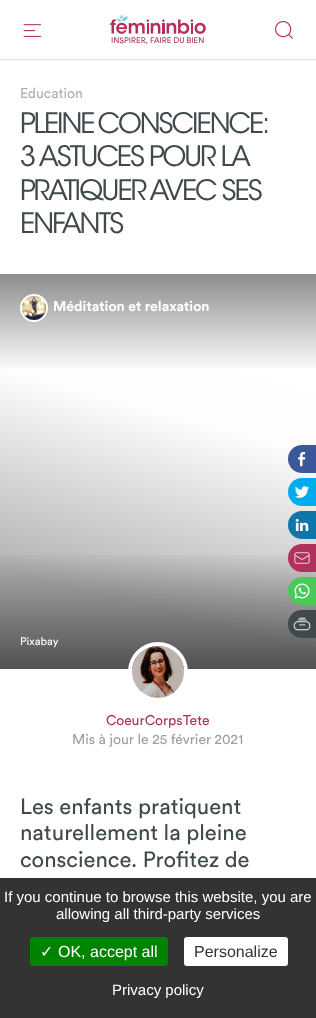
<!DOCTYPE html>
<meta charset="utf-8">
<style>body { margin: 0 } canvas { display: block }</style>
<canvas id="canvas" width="316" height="1018"></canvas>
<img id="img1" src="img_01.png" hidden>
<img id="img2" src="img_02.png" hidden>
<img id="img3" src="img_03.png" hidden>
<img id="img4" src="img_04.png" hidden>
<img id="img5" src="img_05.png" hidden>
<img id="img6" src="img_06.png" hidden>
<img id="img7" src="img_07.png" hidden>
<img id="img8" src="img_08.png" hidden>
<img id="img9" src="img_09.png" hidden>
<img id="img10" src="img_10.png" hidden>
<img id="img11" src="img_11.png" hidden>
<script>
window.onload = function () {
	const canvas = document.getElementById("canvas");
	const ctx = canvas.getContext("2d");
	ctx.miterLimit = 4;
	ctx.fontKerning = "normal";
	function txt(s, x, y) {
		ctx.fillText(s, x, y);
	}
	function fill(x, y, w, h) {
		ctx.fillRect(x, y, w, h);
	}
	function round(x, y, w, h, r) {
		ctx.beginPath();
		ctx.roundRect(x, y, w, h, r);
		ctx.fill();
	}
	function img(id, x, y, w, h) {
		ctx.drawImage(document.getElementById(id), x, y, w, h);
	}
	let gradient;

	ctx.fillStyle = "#FFFFFF";
	fill(0, 0, 316, 1018);
	ctx.fillStyle = "#DFDFDF";
	fill(0, 59, 316, 1);
	img("img1", 23, 24, 18, 13);
	img("img2", 275, 21, 18, 18);
	img("img3", 110, 15, 96, 19);
	gradient = ctx.createLinearGradient(158, 274, 158, 373);
	gradient.addColorStop(0, "rgba(0, 0, 0, 0.45)");
	gradient.addColorStop(1, "rgba(0, 0, 0, 0)");
	ctx.fillStyle = gradient;
	fill(0, 274, 316, 94);
	gradient = ctx.createLinearGradient(98, 695, 218, 248);
	gradient.addColorStop(0.21, "#B3B3B3");
	gradient.addColorStop(0.63, "#FFFDFD");
	gradient.addColorStop(0.8, "#FFFFFF");
	ctx.fillStyle = gradient;
	fill(0, 368, 316, 301);
	gradient = ctx.createLinearGradient(158, 669, 158, 550);
	gradient.addColorStop(0, "rgba(0, 0, 0, 0.55)");
	gradient.addColorStop(1, "rgba(0, 0, 0, 0)");
	ctx.fillStyle = gradient;
	fill(0, 555, 316, 114);
	ctx.beginPath();
	ctx.arc(34, 308, 13, 0, Math.PI * 2);
	ctx.strokeStyle = "#FFFFFF";
	ctx.lineWidth = 2;
	ctx.stroke();
	img("img4", 22, 296, 24, 24);
	ctx.beginPath();
	ctx.arc(158, 672, 28, 0, Math.PI * 2);
	ctx.lineWidth = 4;
	ctx.stroke();
	img("img5", 132, 646, 52, 52);
	ctx.fillStyle = "#3B5998";
	ctx.beginPath();
	ctx.roundRect(288, 445, 28, 28, [14, 0, 0, 14]);
	ctx.fill();
	img("img6", 298, 452, 8, 15);
	ctx.fillStyle = "#00ACEE";
	ctx.beginPath();
	ctx.roundRect(288, 478, 28, 28, [14, 0, 0, 14]);
	ctx.fill();
	img("img7", 295, 486, 14, 12);
	ctx.fillStyle = "#0E76A8";
	ctx.beginPath();
	ctx.roundRect(288, 511, 28, 28, [14, 0, 0, 14]);
	ctx.fill();
	img("img8", 295, 519, 14, 12);
	ctx.fillStyle = "#B2325E";
	ctx.beginPath();
	ctx.roundRect(288, 544, 28, 28, [14, 0, 0, 14]);
	ctx.fill();
	img("img9", 294, 552, 16, 12);
	ctx.fillStyle = "#4AC959";
	ctx.beginPath();
	ctx.roundRect(288, 577, 28, 28, [14, 0, 0, 14]);
	ctx.fill();
	img("img10", 294, 583, 16, 16);
	ctx.fillStyle = "#40494C";
	ctx.beginPath();
	ctx.roundRect(288, 610, 28, 28, [14, 0, 0, 14]);
	ctx.fill();
	img("img11", 293, 617, 18, 14);
	ctx.fillStyle = "#333333";
	fill(0, 878, 316, 140);
	ctx.fillStyle = "#008300";
	round(30, 937, 138, 29, 3);
	ctx.fillStyle = "#FFFFFF";
	round(184, 937, 104, 29, 3);
	ctx.font = "8px Circular";
	ctx.fillStyle = "#B2325E";
	txt("INSPIRER, FAIRE DU BIEN", 111, 43);
	ctx.font = "14px Circular";
	ctx.fillStyle = "#AFAFAF";
	txt("Education", 20, 98);
	ctx.letterSpacing = "-2px";
	ctx.wordSpacing = "-2px";
	ctx.font = "300 28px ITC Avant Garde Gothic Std";
	ctx.fillStyle = "#40494C";
	txt("PLEINE CONSCIENCE:", 20, 133);
	ctx.wordSpacing = "0px";
	txt("3 ASTUCES POUR LA", 20, 166);
	txt("PRATIQUER AVEC SES", 20, 200);
	txt("ENFANTS", 20, 233);
	ctx.letterSpacing = "0px";
	ctx.font = "bold 14px Circular";
	ctx.fillStyle = "#FFFFFF";
	txt("Méditation et relaxation", 53, 311);
	ctx.font = "11px Circular";
	txt("Pixabay", 20, 645);
	ctx.font = "14px Circular";
	ctx.fillStyle = "#B2325E";
	txt("CoeurCorpsTete", 106, 725);
	ctx.fillStyle = "#9F9F9F";
	txt("Mis à jour le 25 février 2021", 72, 744);
	ctx.font = "22px Circular";
	ctx.fillStyle = "#40494C";
	txt("Les enfants pratiquent", 20, 814);
	txt("naturellement la pleine", 20, 840);
	txt("conscience. Profitez de", 20, 867);
	ctx.font = "15px Liberation Sans";
	ctx.fillStyle = "#FFFFFF";
	txt("If you continue to browse this website, you are", 4, 902);
	txt("allowing all third-party services", 56, 919);
	ctx.font = "16px DejaVu Sans";
	txt("✓", 40, 957);
	ctx.font = "16px Liberation Sans";
	txt("OK, accept all", 58, 957);
	ctx.fillStyle = "#333333";
	txt("Personalize", 194, 957);
	ctx.font = "15px Liberation Sans";
	ctx.fillStyle = "#FFFFFF";
	txt("Privacy policy", 112, 995);
};
</script>
